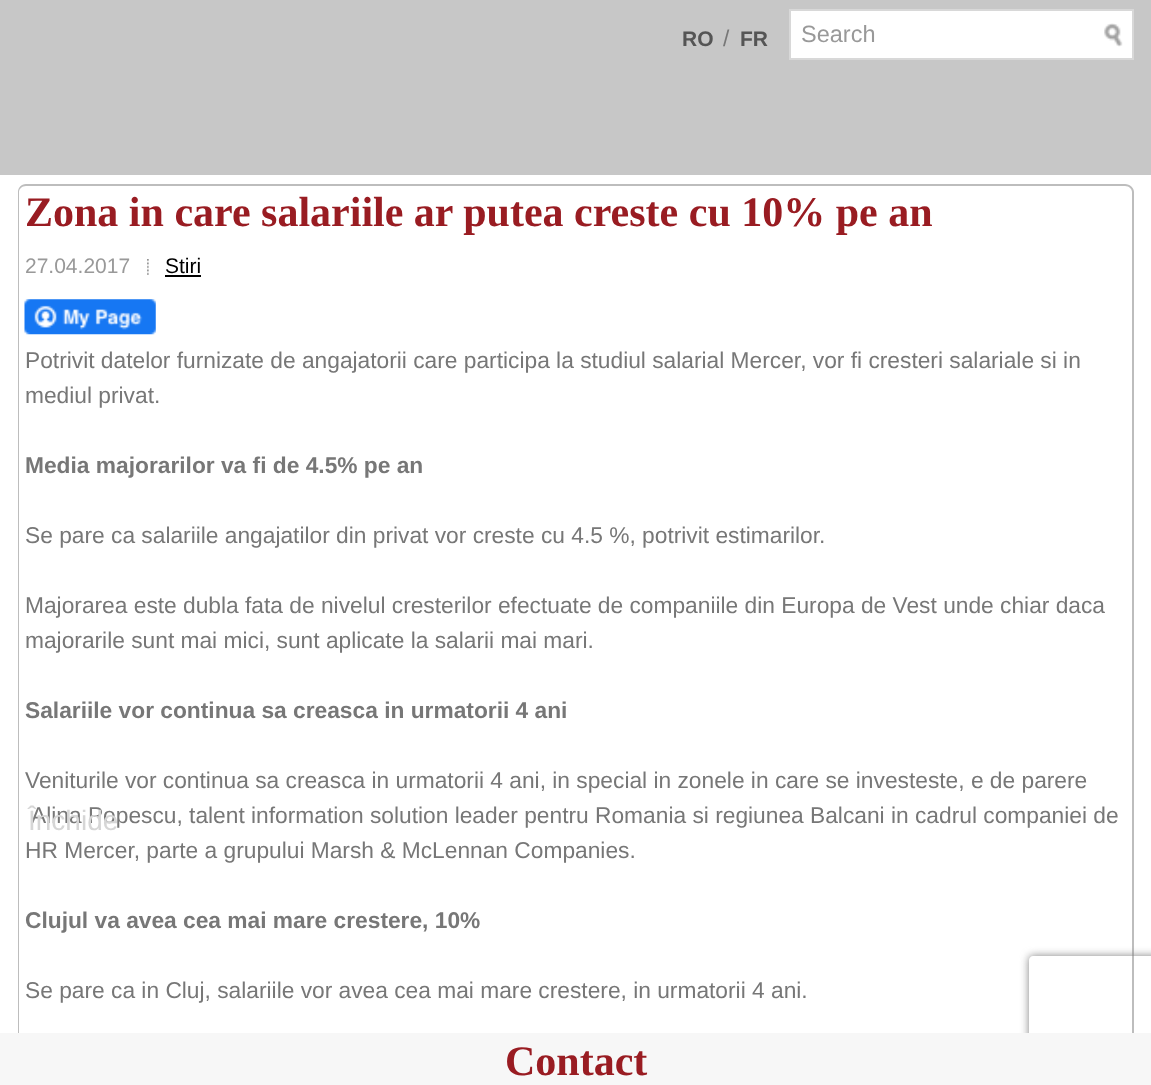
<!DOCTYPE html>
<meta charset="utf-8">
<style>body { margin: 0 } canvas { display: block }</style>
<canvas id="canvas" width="1151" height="1085"></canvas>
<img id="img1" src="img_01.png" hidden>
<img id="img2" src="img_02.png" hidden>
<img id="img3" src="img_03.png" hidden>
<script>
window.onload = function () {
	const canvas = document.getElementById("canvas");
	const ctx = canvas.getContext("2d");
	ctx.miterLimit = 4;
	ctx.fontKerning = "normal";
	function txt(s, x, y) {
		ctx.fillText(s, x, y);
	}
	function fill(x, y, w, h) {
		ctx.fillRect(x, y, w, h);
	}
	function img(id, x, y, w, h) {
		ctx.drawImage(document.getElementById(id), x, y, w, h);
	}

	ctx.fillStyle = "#FFFFFF";
	fill(0, 0, 1151, 1085);
	ctx.fillStyle = "#C7C7C7";
	fill(0, 0, 1151, 175);
	ctx.fillStyle = "#FFFFFF";
	fill(791, 11, 341, 47);
	img("img1", 1104, 23, 19, 24);
	ctx.strokeStyle = "#D8D8D8";
	ctx.lineWidth = 2;
	ctx.strokeRect(790, 10, 343, 49);
	ctx.fillStyle = "#BDBDBD";
	ctx.beginPath();
	ctx.moveTo(26, 184);
	ctx.lineTo(1125, 184);
	ctx.bezierCurveTo(1130, 184, 1134, 188, 1134, 192);
	ctx.lineTo(1134, 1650);
	ctx.bezierCurveTo(1134, 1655, 1130, 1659, 1125, 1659);
	ctx.lineTo(26, 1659);
	ctx.bezierCurveTo(21, 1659, 18, 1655, 18, 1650);
	ctx.lineTo(18, 192);
	ctx.bezierCurveTo(18, 188, 21, 184, 26, 184);
	ctx.closePath();
	ctx.moveTo(26, 186);
	ctx.lineTo(1125, 186);
	ctx.bezierCurveTo(1129, 186, 1132, 189, 1132, 192);
	ctx.lineTo(1132, 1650);
	ctx.bezierCurveTo(1132, 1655, 1129, 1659, 1125, 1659);
	ctx.lineTo(26, 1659);
	ctx.bezierCurveTo(22, 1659, 19, 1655, 19, 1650);
	ctx.lineTo(19, 192);
	ctx.bezierCurveTo(19, 189, 22, 186, 26, 186);
	ctx.closePath();
	ctx.fill("evenodd");
	img("img2", 147, 259, 2, 16);
	ctx.fillStyle = "#000000";
	fill(165, 275, 36, 2);
	img("img3", 24, 299, 132, 36);
	ctx.save();
	ctx.beginPath();
	ctx.moveTo(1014, 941);
	ctx.lineTo(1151, 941);
	ctx.lineTo(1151, 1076);
	ctx.lineTo(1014, 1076);
	ctx.closePath();
	ctx.moveTo(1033, 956);
	ctx.lineTo(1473, 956);
	ctx.bezierCurveTo(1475, 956, 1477, 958, 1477, 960);
	ctx.lineTo(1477, 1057);
	ctx.bezierCurveTo(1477, 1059, 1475, 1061, 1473, 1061);
	ctx.lineTo(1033, 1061);
	ctx.bezierCurveTo(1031, 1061, 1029, 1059, 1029, 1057);
	ctx.lineTo(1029, 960);
	ctx.bezierCurveTo(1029, 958, 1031, 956, 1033, 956);
	ctx.closePath();
	ctx.clip("evenodd");
	ctx.fillStyle = "#808080";
	ctx.filter = "blur(4.5px)";
	ctx.beginPath();
	ctx.roundRect(1029, 956, 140, 105, 4);
	ctx.fill();
	ctx.filter = "none";
	ctx.restore();
	ctx.fillStyle = "#F7F7F7";
	fill(0, 1033, 1151, 52);
	ctx.font = "bold 21px Liberation Sans";
	ctx.fillStyle = "#555555";
	txt("RO", 682, 46);
	ctx.font = "22.75px Liberation Sans";
	ctx.fillStyle = "#777777";
	txt("/", 723, 46);
	ctx.font = "bold 21px Liberation Sans";
	ctx.fillStyle = "#555555";
	txt("FR", 740, 46);
	ctx.font = "23.5px Liberation Sans";
	ctx.fillStyle = "#999999";
	txt("Search", 801, 42);
	ctx.font = "bold 42px Liberation Serif";
	ctx.fillStyle = "#991C22";
	txt("Zona in care salariile ar putea creste cu 10% pe an", 25, 226);
	ctx.font = "21px Liberation Sans";
	ctx.fillStyle = "#999999";
	txt("27.04.2017", 25, 273);
	ctx.fillStyle = "#000000";
	txt("Stiri", 165, 273);
	ctx.font = "22.75px Liberation Sans";
	ctx.fillStyle = "#777777";
	txt("Potrivit datelor furnizate de angajatorii care participa la studiul salarial Mercer, vor fi cresteri salariale si in", 25, 368);
	txt("mediul privat.", 25, 403);
	ctx.font = "bold 22.75px Liberation Sans";
	txt("Media majorarilor va fi de 4.5% pe an", 25, 473);
	ctx.font = "22.75px Liberation Sans";
	txt("Se pare ca salariile angajatilor din privat vor creste cu 4.5 %, potrivit estimarilor.", 25, 543);
	txt("Majorarea este dubla fata de nivelul cresterilor efectuate de companiile din Europa de Vest unde chiar daca", 25, 613);
	txt("majorarile sunt mai mici, sunt aplicate la salarii mai mari.", 25, 648);
	ctx.font = "bold 22.75px Liberation Sans";
	txt("Salariile vor continua sa creasca in urmatorii 4 ani", 25, 718);
	ctx.font = "22.75px Liberation Sans";
	txt("Veniturile vor continua sa creasca in urmatorii 4 ani, in special in zonele in care se investeste, e de parere", 25, 788);
	txt("Alina Popescu, talent information solution leader pentru Romania si regiunea Balcani in cadrul companiei de", 31, 823);
	txt("HR Mercer, parte a grupului Marsh & McLennan Companies.", 25, 858);
	ctx.font = "bold 22.75px Liberation Sans";
	txt("Clujul va avea cea mai mare crestere, 10%", 25, 928);
	ctx.font = "22.75px Liberation Sans";
	txt("Se pare ca in Cluj, salariile vor avea cea mai mare crestere, in urmatorii 4 ani.", 25, 998);
	ctx.font = "28px Liberation Sans";
	ctx.fillStyle = "#D6D6D6";
	txt("Închide", 28, 830);
	ctx.font = "bold 42px Liberation Serif";
	ctx.fillStyle = "#991C22";
	txt("Contact", 505, 1075);
};
</script>
